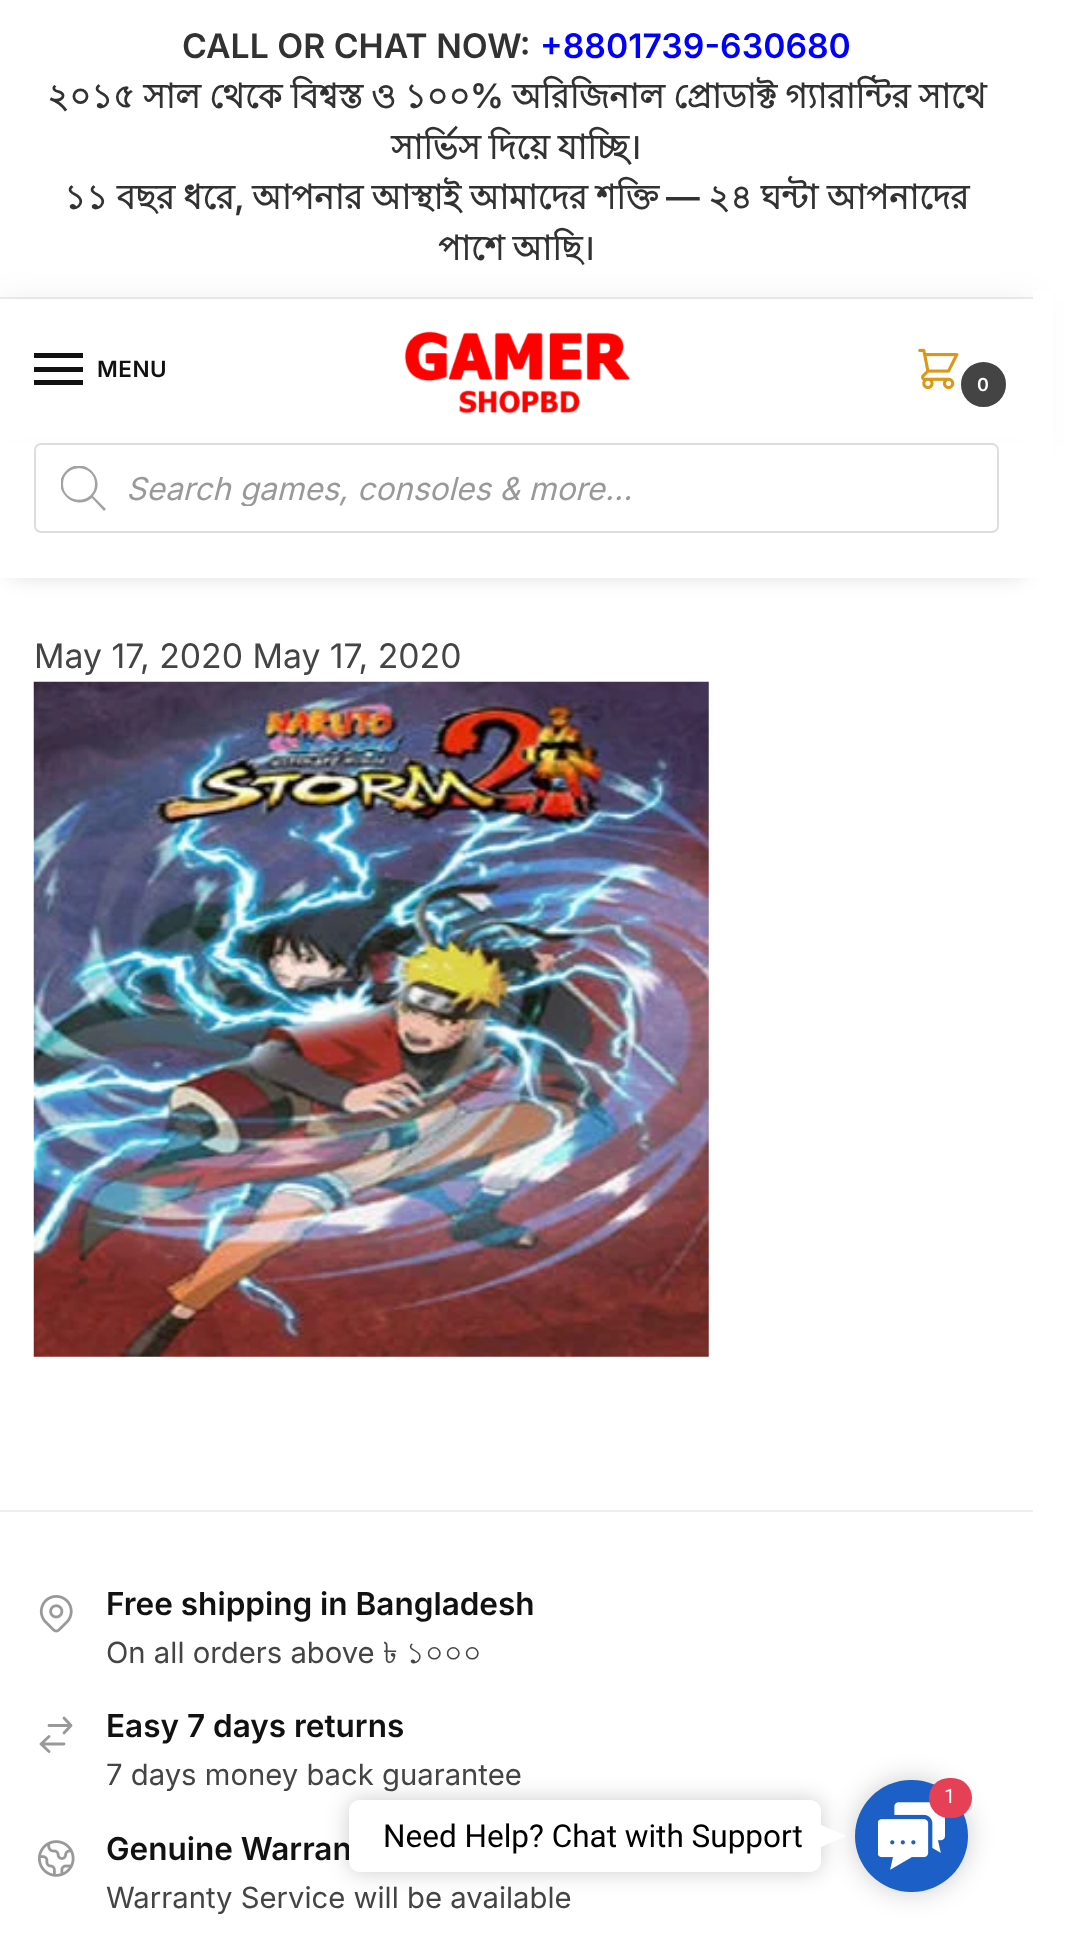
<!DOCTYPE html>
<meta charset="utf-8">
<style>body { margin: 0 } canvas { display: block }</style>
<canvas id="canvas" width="1066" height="1957"></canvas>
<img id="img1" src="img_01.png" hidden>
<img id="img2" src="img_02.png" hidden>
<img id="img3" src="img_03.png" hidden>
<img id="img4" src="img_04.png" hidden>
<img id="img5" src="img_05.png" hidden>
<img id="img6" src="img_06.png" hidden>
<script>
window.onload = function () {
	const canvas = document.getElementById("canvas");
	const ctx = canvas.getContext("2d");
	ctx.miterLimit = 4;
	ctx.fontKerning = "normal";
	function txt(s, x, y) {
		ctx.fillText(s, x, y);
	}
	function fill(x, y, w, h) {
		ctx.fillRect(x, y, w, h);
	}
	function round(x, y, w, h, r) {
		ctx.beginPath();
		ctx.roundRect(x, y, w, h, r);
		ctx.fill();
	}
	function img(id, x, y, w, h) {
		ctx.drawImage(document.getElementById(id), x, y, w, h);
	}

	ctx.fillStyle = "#FFFFFF";
	fill(0, 0, 1066, 1957);
	ctx.fillStyle = "#EEEEEE";
	fill(0, 297, 1033, 2);
	ctx.fillStyle = "rgba(0, 0, 0, 0.08)";
	ctx.filter = "blur(17px)";
	ctx.beginPath();
	ctx.rect(0, 302, 1033, 144);
	ctx.fill();
	ctx.filter = "none";
	ctx.fillStyle = "#FFFFFF";
	fill(0, 299, 1033, 144);
	ctx.fillStyle = "#111111";
	fill(34, 353, 49, 5);
	fill(34, 367, 49, 5);
	fill(34, 380, 49, 5);
	img("img1", 404, 331, 226, 83);
	img("img2", 918, 348, 41, 42);
	ctx.fillStyle = "#444444";
	ctx.beginPath();
	ctx.arc(983.5, 384.5, 21.5, 0, Math.PI * 2);
	ctx.fill();
	ctx.strokeStyle = "#444444";
	ctx.lineWidth = 2;
	ctx.stroke();
	ctx.fillStyle = "rgba(0, 0, 0, 0.18)";
	ctx.filter = "blur(11px)";
	ctx.beginPath();
	ctx.rect(11, 461, 1011, 113);
	ctx.fill();
	ctx.filter = "none";
	ctx.fillStyle = "#FFFFFF";
	fill(0, 443, 1033, 135);
	ctx.beginPath();
	ctx.roundRect(35, 444, 963, 88, 6);
	ctx.strokeStyle = "#DDDDDD";
	ctx.stroke();
	ctx.save();
	ctx.beginPath();
	ctx.rect(61, 466, 45, 45);
	ctx.clip();
	ctx.fillStyle = "#A2A2A2";
	ctx.beginPath();
	ctx.moveTo(106, 509);
	ctx.lineTo(93, 496);
	ctx.bezierCurveTo(108, 479, 83, 454, 66, 471);
	ctx.bezierCurveTo(49, 488, 74, 513, 92, 498);
	ctx.lineTo(104, 511);
	ctx.closePath();
	ctx.moveTo(63, 484);
	ctx.bezierCurveTo(63, 463, 95, 463, 95, 484);
	ctx.bezierCurveTo(95, 505, 63, 505, 63, 484);
	ctx.closePath();
	ctx.fill();
	ctx.restore();
	fill(1033, 291, 20, 286);
	img("img3", 33, 681, 676, 676);
	ctx.fillStyle = "#EEEEEE";
	fill(0, 1510, 1033, 2);
	img("img4", 39, 1595, 34, 38);
	ctx.beginPath();
	ctx.moveTo(49, 1725.5);
	ctx.lineTo(71, 1725.5);
	ctx.moveTo(71, 1725.5);
	ctx.lineTo(64, 1718);
	ctx.moveTo(71, 1725.5);
	ctx.lineTo(64, 1733);
	ctx.moveTo(64, 1744);
	ctx.lineTo(41, 1744);
	ctx.moveTo(41, 1744);
	ctx.lineTo(49, 1751.5);
	ctx.moveTo(41, 1744);
	ctx.lineTo(49, 1736.5);
	ctx.strokeStyle = "#999999";
	ctx.lineWidth = 2.8;
	ctx.lineCap = "round";
	ctx.lineJoin = "round";
	ctx.stroke();
	img("img5", 38, 1840, 37, 37);
	ctx.fillStyle = "rgba(0, 0, 0, 0.2)";
	ctx.filter = "blur(13.5px)";
	ctx.beginPath();
	ctx.roundRect(855, 1780, 113, 112, 56);
	ctx.fill();
	ctx.filter = "none";
	ctx.fillStyle = "#1C5FC6";
	round(855, 1780, 113, 112, 56);
	img("img6", 878, 1802, 67, 68);
	ctx.fillStyle = "#E64056";
	round(929, 1778, 43, 40, 20);
	ctx.fillStyle = "rgba(0, 0, 0, 0.2)";
	ctx.filter = "blur(11px)";
	ctx.beginPath();
	ctx.roundRect(349, 1800, 472, 72, 11);
	ctx.fill();
	ctx.filter = "none";
	ctx.fillStyle = "#FFFFFF";
	ctx.beginPath();
	ctx.moveTo(821, 1847);
	ctx.lineTo(821, 1825);
	ctx.lineTo(846, 1836);
	ctx.closePath();
	ctx.fill();
	ctx.font = "600 33.75px Inter";
	ctx.fillStyle = "#323232";
	txt("CALL OR CHAT NOW:", 182, 58);
	ctx.fillStyle = "#0000FF";
	txt("+8801739-630680", 540, 58);
	ctx.wordSpacing = "-0.75px";
	ctx.font = "bold 33.75px Lohit Bengali";
	ctx.fillStyle = "#323232";
	txt("২০১৫ সাল থেকে বিশ্বস্ত ও ১০০", 47, 108);
	ctx.wordSpacing = "0px";
	ctx.font = "600 33.75px Inter";
	txt("%", 470, 108);
	ctx.wordSpacing = "-0.75px";
	ctx.font = "bold 33.75px Lohit Bengali";
	txt("অরিজিনাল প্রোডাক্ট গ্যারান্টির সাথে", 512, 108);
	ctx.wordSpacing = "-1px";
	txt("সার্ভিস দিয়ে যাচ্ছি।", 391, 159);
	ctx.wordSpacing = "-0.5px";
	txt("১১ বছর ধরে", 64, 209);
	txt("আপনার আস্থাই আমাদের শক্তি", 252, 209);
	ctx.wordSpacing = "0px";
	ctx.font = "600 33.75px Inter";
	txt("—", 666, 209);
	ctx.wordSpacing = "-0.5px";
	ctx.font = "bold 33.75px Lohit Bengali";
	txt("২৪ ঘন্টা আপনাদের", 708, 209);
	ctx.wordSpacing = "0px";
	ctx.font = "600 33.75px Inter";
	txt(",", 234, 209);
	ctx.wordSpacing = "-1px";
	ctx.font = "bold 33.75px Lohit Bengali";
	txt("পাশে আছি।", 438, 260);
	ctx.letterSpacing = "0.5px";
	ctx.wordSpacing = "0px";
	ctx.font = "600 22.5px Inter";
	ctx.fillStyle = "#111111";
	txt("MENU", 97, 377);
	ctx.letterSpacing = "0px";
	ctx.font = "600 18px Inter";
	ctx.fillStyle = "#FFFFFF";
	txt("0", 977, 391);
	ctx.save();
	ctx.beginPath();
	ctx.rect(126, 468, 837, 38);
	ctx.clip();
	ctx.font = "italic 31.5px Inter";
	ctx.fillStyle = "#999999";
	txt("Search games, consoles & more...", 126, 500);
	ctx.restore();
	ctx.font = "33.75px Inter";
	ctx.fillStyle = "#444444";
	txt("May 17, 2020 May 17, 2020", 34, 668);
	ctx.font = "600 31.5px Inter";
	ctx.fillStyle = "#111111";
	txt("Free shipping in Bangladesh", 106, 1615);
	ctx.font = "29.25px Inter";
	ctx.fillStyle = "#444444";
	txt("On all orders above", 106, 1663);
	ctx.font = "29.25px Lohit Bengali";
	txt("৳ ১০০০", 383, 1663);
	ctx.font = "600 31.5px Inter";
	ctx.fillStyle = "#111111";
	txt("Easy 7 days returns", 106, 1737);
	ctx.font = "29.25px Inter";
	ctx.fillStyle = "#444444";
	txt("7 days money back guarantee", 106, 1785);
	ctx.font = "600 31.5px Inter";
	ctx.fillStyle = "#111111";
	txt("Genuine Warran", 106, 1860);
	ctx.font = "29.25px Inter";
	ctx.fillStyle = "#444444";
	txt("Warranty Service will be available", 106, 1908);
	ctx.font = "20px Roboto";
	ctx.fillStyle = "#FFFFFF";
	txt("1", 944, 1803);
	round(349, 1800, 472, 72, 11);
	ctx.font = "31.5px Roboto";
	ctx.fillStyle = "#000000";
	txt("Need Help? Chat with Support", 383, 1847);
};
</script>
